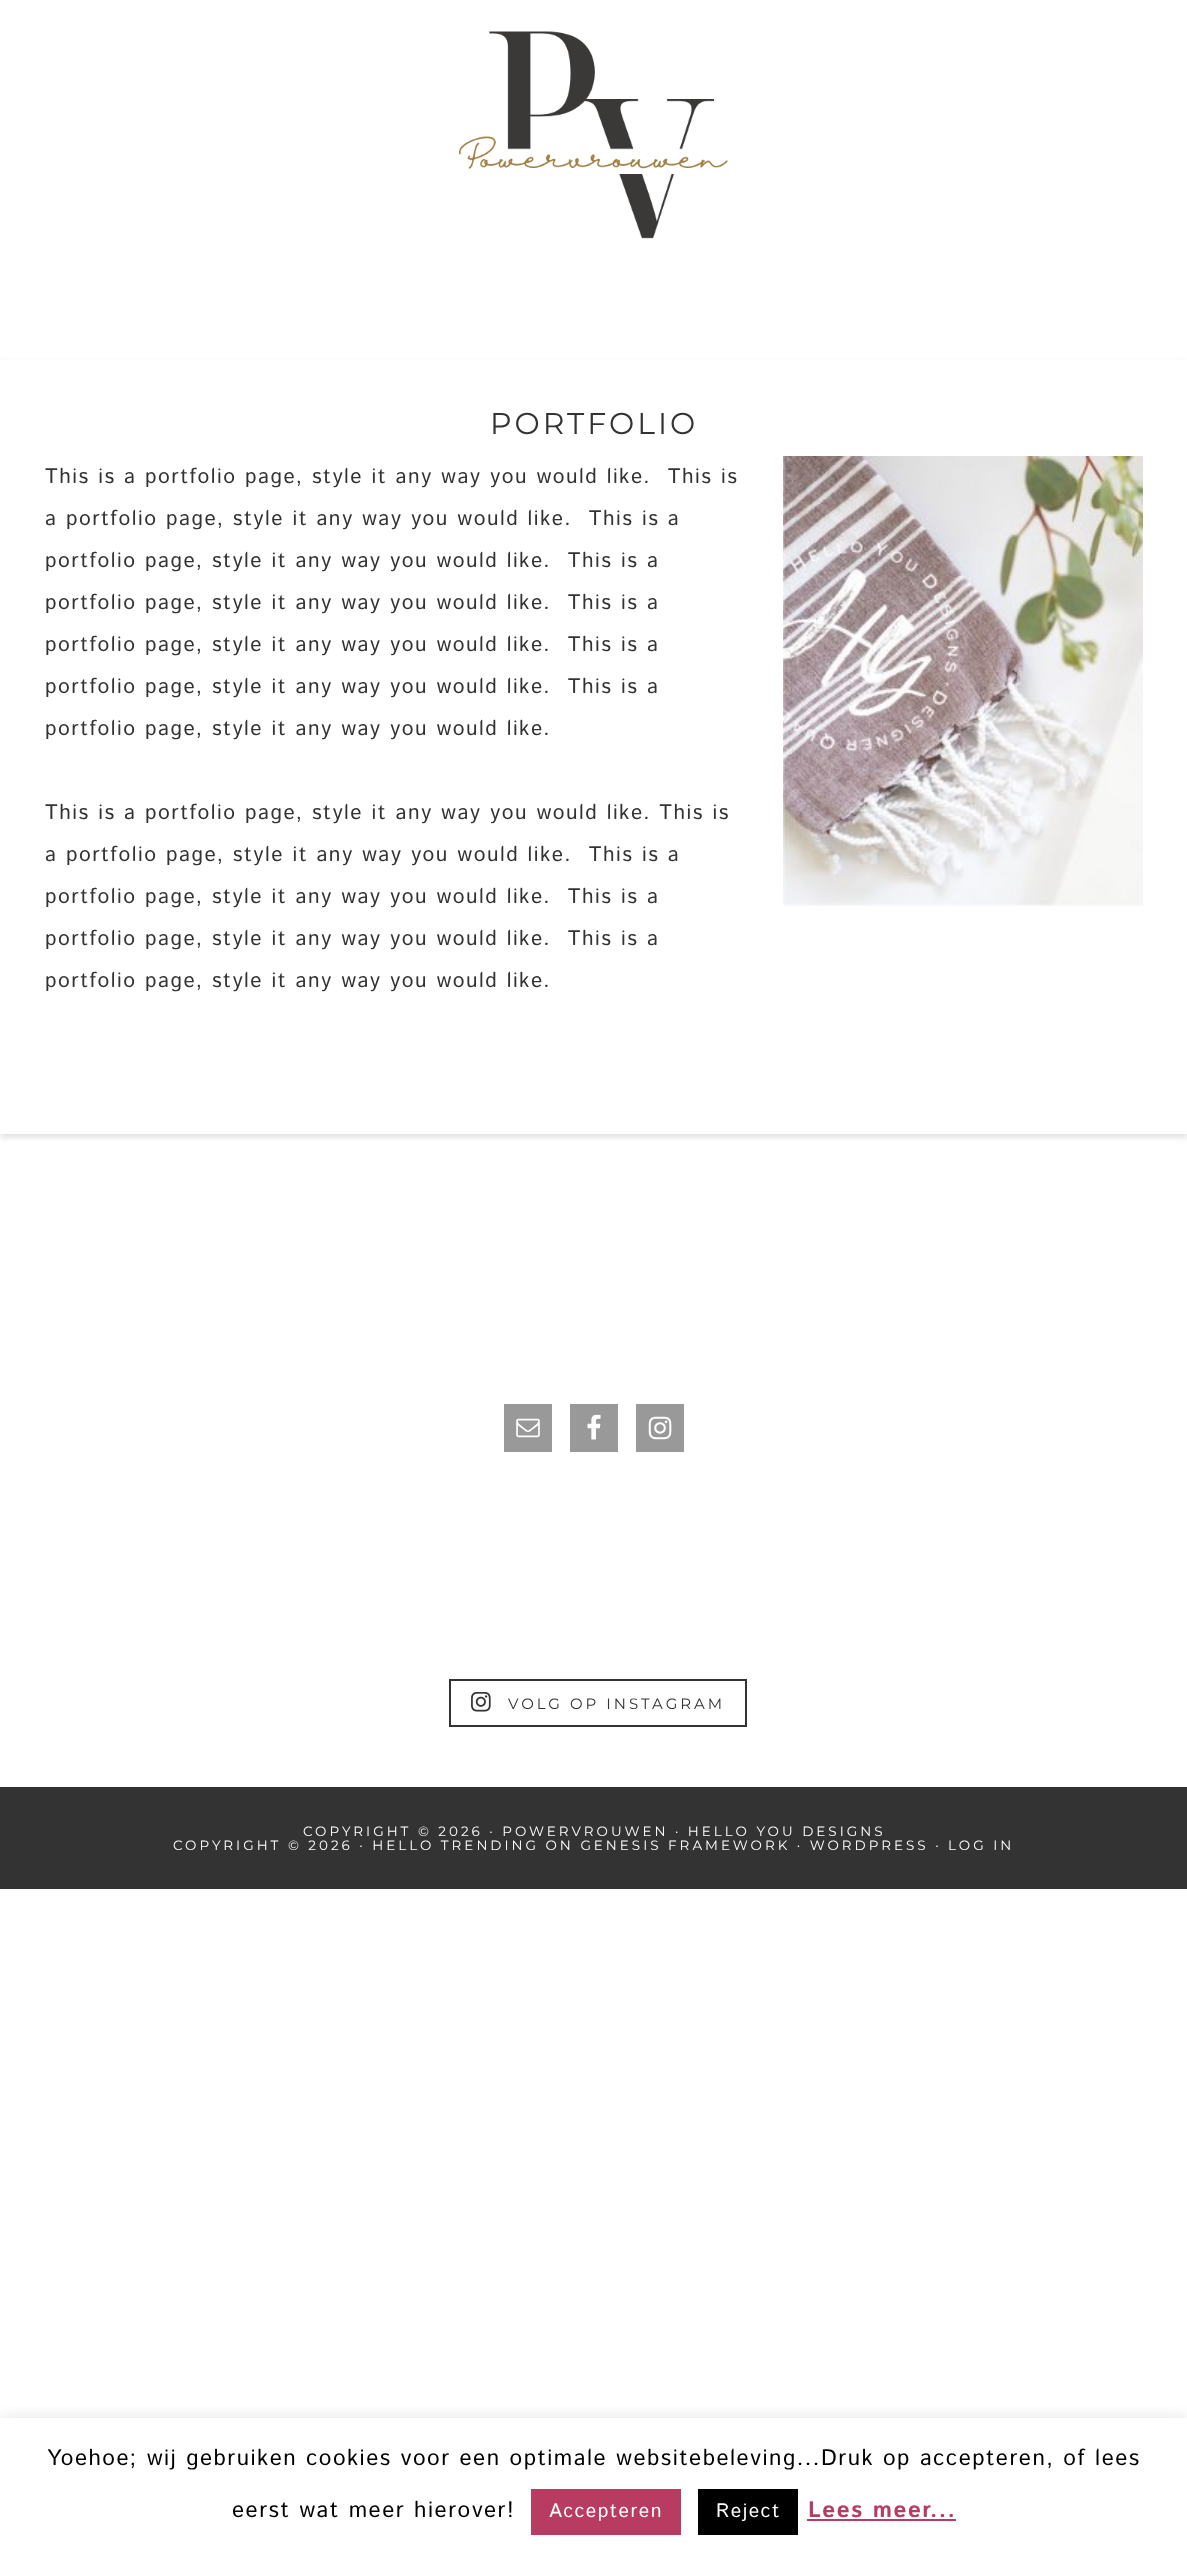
<!DOCTYPE html>
<meta charset="utf-8">
<style>body { margin: 0 } canvas { display: block }</style>
<canvas id="canvas" width="1187" height="2553"></canvas>
<img id="img1" src="img_01.png" hidden>
<img id="img2" src="img_02.png" hidden>
<img id="img3" src="img_03.png" hidden>
<img id="img4" src="img_04.png" hidden>
<img id="img5" src="img_05.png" hidden>
<img id="img6" src="img_06.png" hidden>
<script>
window.onload = function () {
	const canvas = document.getElementById("canvas");
	const ctx = canvas.getContext("2d");
	ctx.miterLimit = 4;
	ctx.fontKerning = "normal";
	function txt(s, x, y) {
		ctx.fillText(s, x, y);
	}
	function fill(x, y, w, h) {
		ctx.fillRect(x, y, w, h);
	}
	function img(id, x, y, w, h) {
		ctx.drawImage(document.getElementById(id), x, y, w, h);
	}

	ctx.fillStyle = "#FFFFFF";
	fill(0, 0, 1187, 2553);
	img("img1", 459, 31, 269, 208);
	ctx.save();
	ctx.beginPath();
	ctx.moveTo(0, 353);
	ctx.lineTo(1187, 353);
	ctx.lineTo(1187, 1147);
	ctx.lineTo(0, 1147);
	ctx.closePath();
	ctx.moveTo(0, 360);
	ctx.lineTo(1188, 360);
	ctx.lineTo(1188, 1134);
	ctx.lineTo(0, 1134);
	ctx.closePath();
	ctx.clip("evenodd");
	ctx.fillStyle = "#DDDDDD";
	ctx.filter = "blur(3px)";
	ctx.beginPath();
	ctx.rect(0, 363, 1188, 774);
	ctx.fill();
	ctx.filter = "none";
	ctx.restore();
	img("img2", 783, 456, 360, 450);
	ctx.fillStyle = "#999999";
	fill(504, 1404, 48, 48);
	img("img3", 516, 1418, 24, 20);
	fill(570, 1404, 48, 48);
	img("img4", 587, 1414, 14, 26);
	fill(636, 1404, 48, 48);
	img("img5", 648, 1416, 24, 24);
	ctx.strokeStyle = "#333333";
	ctx.lineWidth = 2;
	ctx.strokeRect(450, 1680, 296, 46);
	img("img6", 471, 1692, 20, 20);
	ctx.fillStyle = "#333333";
	fill(0, 1787, 1187, 102);
	ctx.save();
	ctx.beginPath();
	ctx.rect(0, 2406, 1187, 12);
	ctx.clip();
	ctx.fillStyle = "rgba(172, 171, 171, 0.3)";
	ctx.filter = "blur(7.5px)";
	ctx.beginPath();
	ctx.rect(0, 2417, 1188, 135);
	ctx.fill();
	ctx.filter = "none";
	ctx.restore();
	ctx.fillStyle = "#B83B62";
	fill(531, 2489, 150, 46);
	ctx.fillStyle = "#000000";
	fill(698, 2489, 100, 46);
	ctx.fillStyle = "#B83B62";
	fill(807, 2519, 149, 2);
	ctx.letterSpacing = "3px";
	ctx.font = "30px Montserrat";
	ctx.fillStyle = "#333333";
	txt("PORTFOLIO", 490, 434);
	ctx.letterSpacing = "1.5px";
	ctx.font = "21px Istok Web";
	txt("This is a portfolio page, style it any way you would like.  This is", 45, 483);
	txt("a portfolio page, style it any way you would like.  This is a", 45, 525);
	txt("portfolio page, style it any way you would like.  This is a", 45, 567);
	txt("portfolio page, style it any way you would like.  This is a", 45, 609);
	txt("portfolio page, style it any way you would like.  This is a", 45, 651);
	txt("portfolio page, style it any way you would like.  This is a", 45, 693);
	txt("portfolio page, style it any way you would like.", 45, 735);
	txt("This is a portfolio page, style it any way you would like. This is", 45, 819);
	txt("a portfolio page, style it any way you would like.  This is a", 45, 861);
	txt("portfolio page, style it any way you would like.  This is a", 45, 903);
	txt("portfolio page, style it any way you would like.  This is a", 45, 945);
	txt("portfolio page, style it any way you would like.", 45, 987);
	ctx.letterSpacing = "3px";
	ctx.font = "15px Montserrat";
	txt("VOLG OP INSTAGRAM", 508, 1709);
	ctx.font = "13.5px Montserrat";
	ctx.fillStyle = "#FFFFFF";
	txt("COPYRIGHT © 2026 · POWERVROUWEN · HELLO YOU DESIGNS", 303, 1836);
	txt("COPYRIGHT © 2026 · HELLO TRENDING ON GENESIS FRAMEWORK · WORDPRESS · LOG IN", 173, 1850);
	ctx.letterSpacing = "1.5px";
	ctx.font = "22.5px Istok Web";
	ctx.fillStyle = "#000000";
	txt("Yoehoe; wij gebruiken cookies voor een optimale websitebeleving...Druk op accepteren, of lees", 47, 2465);
	txt("eerst wat meer hierover!", 232, 2517);
	ctx.font = "19.5px Istok Web";
	ctx.fillStyle = "#FFFFFF";
	txt("Accepteren", 549, 2517);
	txt("Reject", 716, 2517);
	ctx.font = "bold 22.5px Istok Web";
	ctx.fillStyle = "#B83B62";
	txt("Lees meer...", 808, 2517);
};
</script>
